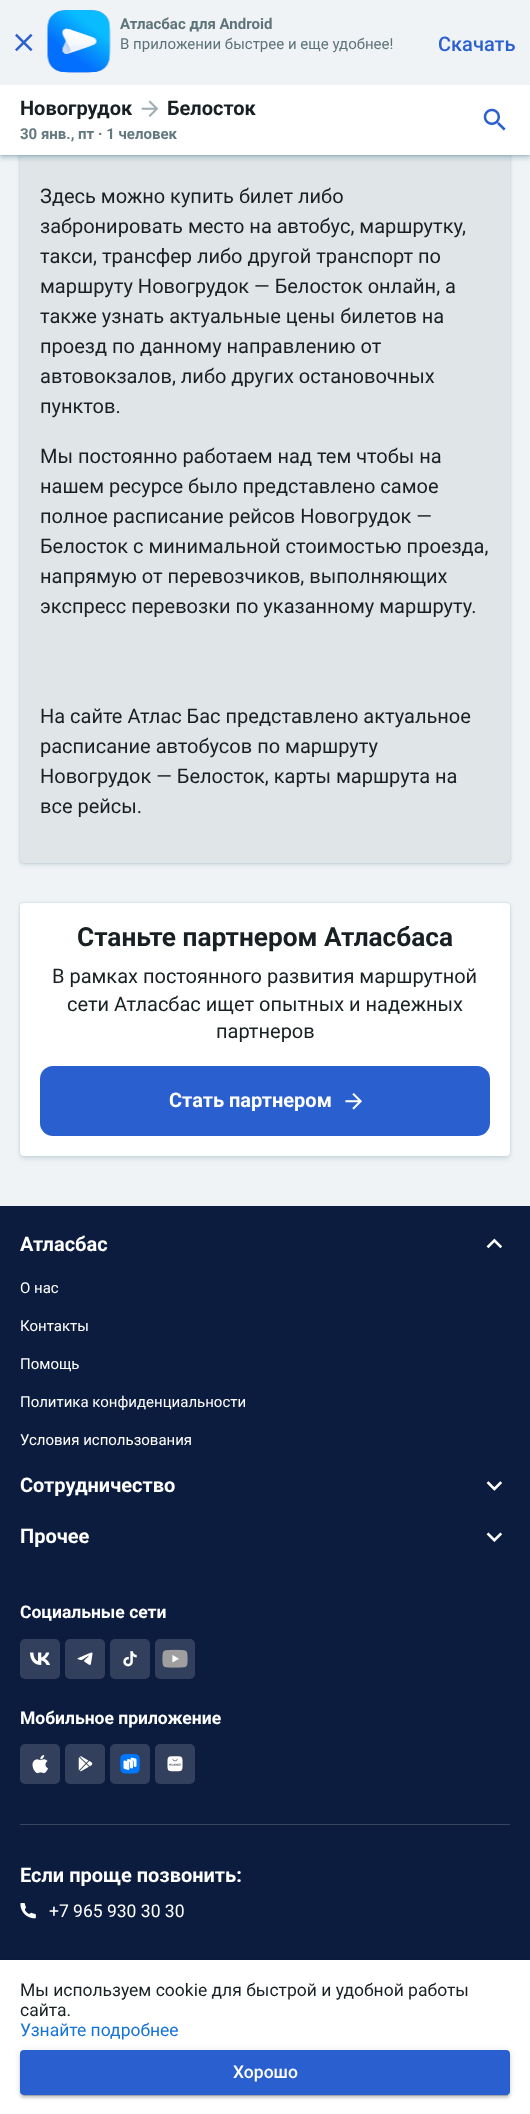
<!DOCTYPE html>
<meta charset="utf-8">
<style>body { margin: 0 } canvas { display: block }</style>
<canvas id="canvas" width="530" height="2114"></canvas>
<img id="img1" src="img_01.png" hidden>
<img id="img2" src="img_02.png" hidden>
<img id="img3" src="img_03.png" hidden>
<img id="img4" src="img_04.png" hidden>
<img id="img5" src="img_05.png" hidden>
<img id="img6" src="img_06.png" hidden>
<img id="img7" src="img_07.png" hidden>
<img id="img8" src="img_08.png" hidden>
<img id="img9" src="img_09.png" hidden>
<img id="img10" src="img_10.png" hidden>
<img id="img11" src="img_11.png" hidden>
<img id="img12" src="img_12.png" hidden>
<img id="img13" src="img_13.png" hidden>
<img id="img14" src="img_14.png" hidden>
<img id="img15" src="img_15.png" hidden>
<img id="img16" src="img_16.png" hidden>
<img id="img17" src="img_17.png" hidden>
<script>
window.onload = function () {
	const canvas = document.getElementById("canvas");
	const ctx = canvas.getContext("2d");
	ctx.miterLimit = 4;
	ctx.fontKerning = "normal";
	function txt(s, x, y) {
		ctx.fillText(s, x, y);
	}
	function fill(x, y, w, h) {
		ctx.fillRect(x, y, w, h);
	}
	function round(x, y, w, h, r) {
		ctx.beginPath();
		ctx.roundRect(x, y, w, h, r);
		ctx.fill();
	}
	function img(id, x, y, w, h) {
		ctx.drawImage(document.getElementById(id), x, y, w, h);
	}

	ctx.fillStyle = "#F0F3F5";
	fill(0, 0, 530, 2114);
	ctx.save();
	ctx.beginPath();
	ctx.moveTo(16, 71);
	ctx.lineTo(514, 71);
	ctx.lineTo(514, 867);
	ctx.lineTo(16, 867);
	ctx.closePath();
	ctx.moveTo(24, 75);
	ctx.lineTo(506, 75);
	ctx.bezierCurveTo(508, 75, 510, 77, 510, 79);
	ctx.lineTo(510, 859);
	ctx.bezierCurveTo(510, 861, 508, 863, 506, 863);
	ctx.lineTo(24, 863);
	ctx.bezierCurveTo(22, 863, 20, 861, 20, 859);
	ctx.lineTo(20, 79);
	ctx.bezierCurveTo(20, 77, 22, 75, 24, 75);
	ctx.closePath();
	ctx.clip("evenodd");
	ctx.fillStyle = "rgba(8, 78, 104, 0.18)";
	ctx.filter = "blur(1px)";
	ctx.beginPath();
	ctx.roundRect(20, 75, 490, 788, 4);
	ctx.fill();
	ctx.filter = "none";
	ctx.restore();
	ctx.save();
	ctx.beginPath();
	ctx.moveTo(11, 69);
	ctx.lineTo(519, 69);
	ctx.lineTo(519, 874);
	ctx.lineTo(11, 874);
	ctx.closePath();
	ctx.moveTo(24, 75);
	ctx.lineTo(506, 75);
	ctx.bezierCurveTo(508, 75, 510, 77, 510, 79);
	ctx.lineTo(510, 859);
	ctx.bezierCurveTo(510, 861, 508, 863, 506, 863);
	ctx.lineTo(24, 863);
	ctx.bezierCurveTo(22, 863, 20, 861, 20, 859);
	ctx.lineTo(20, 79);
	ctx.bezierCurveTo(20, 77, 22, 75, 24, 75);
	ctx.closePath();
	ctx.clip("evenodd");
	ctx.fillStyle = "rgba(8, 78, 104, 0.12)";
	ctx.filter = "blur(2.5px)";
	ctx.beginPath();
	ctx.roundRect(20, 78, 490, 787, 4);
	ctx.fill();
	ctx.filter = "none";
	ctx.restore();
	ctx.fillStyle = "rgba(43, 74, 85, 0.08)";
	round(20, 75, 490, 788, 4);
	ctx.fillStyle = "rgba(8, 78, 104, 0.18)";
	ctx.filter = "blur(1px)";
	ctx.beginPath();
	ctx.rect(0, 0, 530, 155);
	ctx.fill();
	ctx.filter = "none";
	ctx.fillStyle = "rgba(8, 78, 104, 0.12)";
	ctx.filter = "blur(2.5px)";
	ctx.beginPath();
	ctx.rect(0, 3, 530, 155);
	ctx.fill();
	ctx.filter = "none";
	ctx.fillStyle = "rgba(8, 78, 104, 0.18)";
	ctx.filter = "blur(1px)";
	ctx.beginPath();
	ctx.rect(0, 0, 530, 155);
	ctx.fill();
	ctx.filter = "none";
	ctx.fillStyle = "rgba(8, 78, 104, 0.12)";
	ctx.filter = "blur(2.5px)";
	ctx.beginPath();
	ctx.rect(0, 3, 530, 155);
	ctx.fill();
	ctx.filter = "none";
	ctx.fillStyle = "#F0F3F5";
	fill(0, 0, 530, 85);
	img("img1", 15, 33, 18, 19);
	img("img2", 47, 10, 64, 63);
	ctx.fillStyle = "#FFFFFF";
	fill(0, 85, 530, 70);
	img("img3", 141, 100, 18, 17);
	img("img4", 483, 108, 23, 23);
	ctx.fillStyle = "rgba(8, 78, 104, 0.18)";
	ctx.filter = "blur(1px)";
	ctx.beginPath();
	ctx.roundRect(20, 903, 490, 253, 4);
	ctx.fill();
	ctx.filter = "none";
	ctx.fillStyle = "rgba(8, 78, 104, 0.12)";
	ctx.filter = "blur(2.5px)";
	ctx.beginPath();
	ctx.roundRect(20, 905, 490, 254, 4);
	ctx.fill();
	ctx.filter = "none";
	ctx.fillStyle = "#FFFFFF";
	round(20, 903, 490, 253, 4);
	ctx.fillStyle = "#2A5FCF";
	round(40, 1066, 450, 70, 13);
	img("img5", 345, 1093, 17, 17);
	ctx.fillStyle = "#0C1C3E";
	fill(0, 1206, 530, 754);
	img("img6", 486, 1238, 17, 11);
	img("img7", 486, 1481, 17, 10);
	img("img8", 486, 1532, 17, 10);
	ctx.fillStyle = "#33405D";
	round(20, 1639, 40, 40, 5);
	img("img9", 30, 1652, 20, 13);
	round(65, 1639, 40, 40, 5);
	img("img10", 77, 1652, 16, 13);
	round(110, 1639, 40, 40, 5);
	img("img11", 123, 1651, 14, 16);
	round(155, 1639, 40, 40, 5);
	img("img12", 162, 1649, 26, 19);
	round(20, 1744, 40, 40, 5);
	img("img13", 32, 1755, 16, 19);
	round(65, 1744, 40, 40, 5);
	img("img14", 78, 1756, 15, 16);
	round(110, 1744, 40, 40, 5);
	img("img15", 120, 1754, 20, 20);
	round(155, 1744, 40, 40, 5);
	img("img16", 167, 1756, 16, 16);
	ctx.fillStyle = "#37445F";
	fill(20, 1824, 490, 1);
	img("img17", 20, 1903, 16, 16);
	ctx.fillStyle = "rgba(0, 0, 0, 0.12)";
	ctx.filter = "blur(2px)";
	ctx.beginPath();
	ctx.rect(0, 1961, 530, 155);
	ctx.fill();
	ctx.filter = "none";
	ctx.fillStyle = "#FFFFFF";
	fill(0, 1960, 530, 154);
	ctx.fillStyle = "rgba(0, 0, 0, 0.12)";
	ctx.filter = "blur(3px)";
	ctx.beginPath();
	ctx.roundRect(20, 2051, 490, 45, 4);
	ctx.fill();
	ctx.filter = "none";
	ctx.fillStyle = "rgba(0, 0, 0, 0.14)";
	ctx.filter = "blur(1px)";
	ctx.beginPath();
	ctx.roundRect(20, 2053, 490, 45, 4);
	ctx.fill();
	ctx.filter = "none";
	ctx.fillStyle = "rgba(0, 0, 0, 0.2)";
	ctx.filter = "blur(0.5px)";
	ctx.beginPath();
	ctx.roundRect(23, 2056, 485, 40, 1);
	ctx.fill();
	ctx.filter = "none";
	ctx.fillStyle = "#2A5FCF";
	round(20, 2050, 490, 45, 4);
	ctx.font = "bold 15px Roboto";
	ctx.fillStyle = "#5E747B";
	txt("Атласбас для Android", 120, 29);
	ctx.font = "15px Roboto";
	txt("В приложении быстрее и еще удобнее!", 120, 49);
	ctx.font = "500 20px Roboto";
	ctx.fillStyle = "#2A5FCF";
	txt("Скачать", 438, 51);
	ctx.font = "bold 20px Roboto";
	ctx.fillStyle = "#182023";
	txt("Новогрудок", 20, 115);
	txt("Белосток", 167, 115);
	ctx.font = "bold 15px Roboto";
	ctx.fillStyle = "#64787F";
	txt("30 янв., пт · 1 человек", 20, 139);
	ctx.font = "20px Roboto";
	ctx.fillStyle = "#182023";
	txt("Здесь можно купить билет либо", 40, 203);
	txt("забронировать место на автобус, маршрутку,", 40, 233);
	txt("такси, трансфер либо другой транспорт по", 40, 263);
	txt("маршруту Новогрудок — Белосток онлайн, а", 40, 293);
	txt("также узнать актуальные цены билетов на", 40, 323);
	txt("проезд по данному направлению от", 40, 353);
	txt("автовокзалов, либо других остановочных", 40, 383);
	txt("пунктов.", 40, 413);
	txt("Мы постоянно работаем над тем чтобы на", 40, 463);
	txt("нашем ресурсе было представлено самое", 40, 493);
	txt("полное расписание рейсов Новогрудок —", 40, 523);
	txt("Белосток с минимальной стоимостью проезда,", 40, 553);
	txt("напрямую от перевозчиков, выполняющих", 40, 583);
	txt("экспресс перевозки по указанному маршруту.", 40, 613);
	txt("На сайте Атлас Бас представлено актуальное", 40, 723);
	txt("расписание автобусов по маршруту", 40, 753);
	txt("Новогрудок — Белосток, карты маршрута на", 40, 783);
	txt("все рейсы.", 40, 813);
	ctx.font = "bold 26.25px Roboto";
	txt("Станьте партнером Атласбаса", 77, 946);
	ctx.font = "20px Roboto";
	txt("В рамках постоянного развития маршрутной", 52, 983);
	txt("сети Атласбас ищет опытных и надежных", 67, 1011);
	txt("партнеров", 216, 1038);
	ctx.font = "bold 20px Roboto";
	ctx.fillStyle = "#FFFFFF";
	txt("Стать партнером", 169, 1107);
	txt("Атласбас", 20, 1251);
	ctx.font = "15px Roboto";
	txt("О нас", 20, 1293);
	txt("Контакты", 20, 1331);
	txt("Помощь", 20, 1369);
	txt("Политика конфиденциальности", 20, 1407);
	txt("Условия использования", 20, 1445);
	ctx.font = "bold 20px Roboto";
	txt("Сотрудничество", 20, 1492);
	txt("Прочее", 20, 1543);
	ctx.font = "bold 17.5px Roboto";
	txt("Социальные сети", 20, 1618);
	txt("Мобильное приложение", 20, 1724);
	ctx.font = "bold 20px Roboto";
	txt("Если проще позвонить:", 20, 1882);
	ctx.font = "17.5px Roboto";
	txt("+7 965 930 30 30", 49, 1917);
	ctx.fillStyle = "#182023";
	txt("Мы используем cookie для быстрой и удобной работы", 20, 1996);
	txt("сайта.", 20, 2016);
	ctx.fillStyle = "#1673D6";
	txt("Узнайте подробнее", 20, 2036);
	ctx.font = "500 17.5px Roboto";
	ctx.fillStyle = "#FFFFFF";
	txt("Хорошо", 233, 2078);
};
</script>
